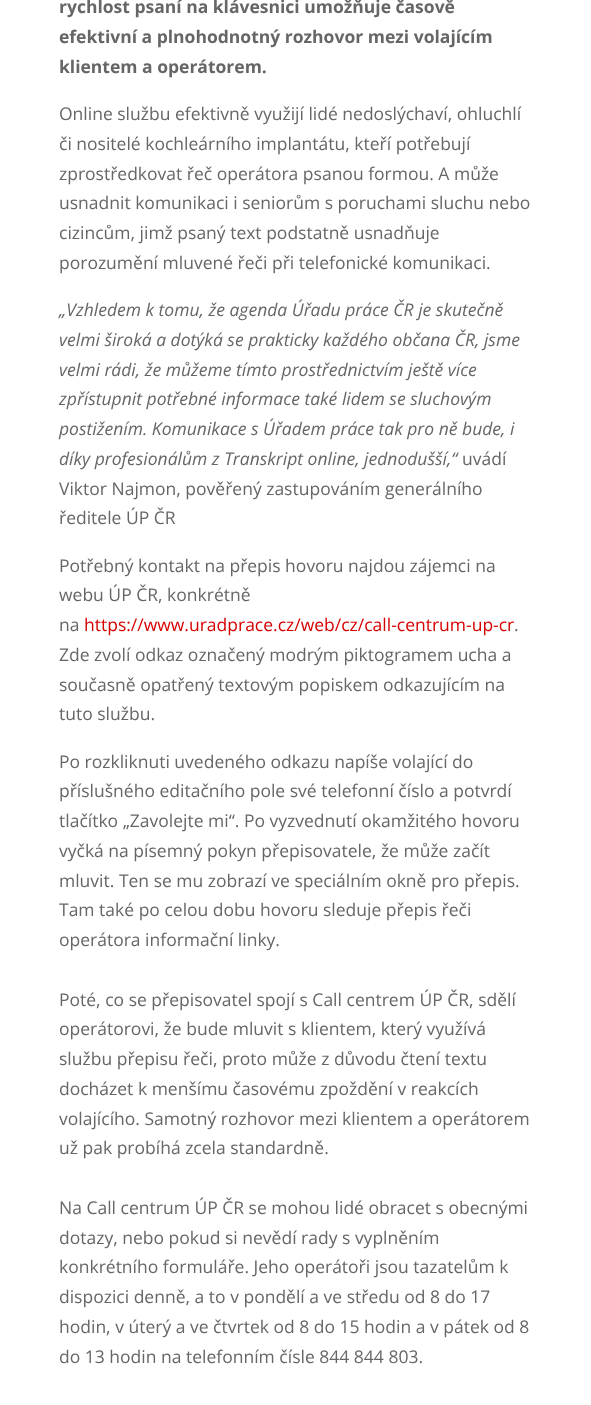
<!DOCTYPE html>
<meta charset="utf-8">
<style>body { margin: 0 } canvas { display: block }</style>
<canvas id="canvas" width="591" height="1405"></canvas>
<script>
window.onload = function () {
	const canvas = document.getElementById("canvas");
	const ctx = canvas.getContext("2d");
	ctx.miterLimit = 4;
	ctx.fontKerning = "normal";
	function txt(s, x, y) {
		ctx.fillText(s, x, y);
	}
	function fill(x, y, w, h) {
		ctx.fillRect(x, y, w, h);
	}

	ctx.fillStyle = "#FFFFFF";
	fill(0, 0, 591, 1405);
	ctx.font = "bold 17.5px Open Sans";
	ctx.fillStyle = "#666666";
	txt("rychlost psaní na klávesnici umožňuje časově", 59, 13);
	txt("efektivní a plnohodnotný rozhovor mezi volajícím", 59, 43);
	txt("klientem a operátorem.", 59, 73);
	ctx.font = "17.5px Open Sans";
	txt("Online službu efektivně využijí lidé nedoslýchaví, ohluchlí", 59, 120);
	txt("či nositelé kochleárního implantátu, kteří potřebují", 59, 150);
	txt("zprostředkovat řeč operátora psanou formou. A může", 59, 180);
	txt("usnadnit komunikaci i seniorům s poruchami sluchu nebo", 59, 209);
	txt("cizincům, jimž psaný text podstatně usnadňuje", 59, 239);
	txt("porozumění mluvené řeči při telefonické komunikaci.", 59, 269);
	ctx.font = "italic 17.5px Open Sans";
	txt("„Vzhledem k tomu, že agenda Úřadu práce ČR je skutečně", 59, 316);
	txt("velmi široká a dotýká se prakticky každého občana ČR, jsme", 59, 346);
	txt("velmi rádi, že můžeme tímto prostřednictvím ještě více", 59, 376);
	txt("zpřístupnit potřebné informace také lidem se sluchovým", 59, 405);
	txt("postižením. Komunikace s Úřadem práce tak pro ně bude, i", 59, 435);
	txt("díky profesionálům z Transkript online, jednodušší,“", 59, 465);
	ctx.font = "17.5px Open Sans";
	txt("uvádí", 462, 465);
	txt("Viktor Najmon, pověřený zastupováním generálního", 59, 495);
	txt("ředitele ÚP ČR", 59, 524);
	txt("Potřebný kontakt na přepis hovoru najdou zájemci na", 59, 572);
	txt("webu ÚP ČR, konkrétně", 59, 601);
	txt("na", 59, 631);
	ctx.fillStyle = "#D60000";
	txt("https://www.uradprace.cz/web/cz/call-centrum-up-cr", 84, 631);
	ctx.fillStyle = "#666666";
	txt(".", 514, 631);
	txt("Zde zvolí odkaz označený modrým piktogramem ucha a", 59, 661);
	txt("současně opatřený textovým popiskem odkazujícím na", 59, 691);
	txt("tuto službu.", 59, 720);
	txt("Po rozkliknuti uvedeného odkazu napíše volající do", 59, 768);
	txt("příslušného editačního pole své telefonní číslo a potvrdí", 59, 797);
	txt("tlačítko „Zavolejte mi“. Po vyzvednutí okamžitého hovoru", 59, 827);
	txt("vyčká na písemný pokyn přepisovatele, že může začít", 59, 857);
	txt("mluvit. Ten se mu zobrazí ve speciálním okně pro přepis.", 59, 887);
	txt("Tam také po celou dobu hovoru sleduje přepis řeči", 59, 916);
	txt("operátora informační linky.", 59, 946);
	txt("Poté, co se přepisovatel spojí s Call centrem ÚP ČR, sdělí", 59, 1006);
	txt("operátorovi, že bude mluvit s klientem, který využívá", 59, 1035);
	txt("službu přepisu řeči, proto může z důvodu čtení textu", 59, 1065);
	txt("docházet k menšímu časovému zpoždění v reakcích", 59, 1095);
	txt("volajícího. Samotný rozhovor mezi klientem a operátorem", 59, 1125);
	txt("už pak probíhá zcela standardně.", 59, 1154);
	txt("Na Call centrum ÚP ČR se mohou lidé obracet s obecnými", 59, 1214);
	txt("dotazy, nebo pokud si nevědí rady s vyplněním", 59, 1244);
	txt("konkrétního formuláře. Jeho operátoři jsou tazatelům k", 59, 1273);
	txt("dispozici denně, a to v pondělí a ve středu od 8 do 17", 59, 1303);
	txt("hodin, v úterý a ve čtvrtek od 8 do 15 hodin a v pátek od 8", 59, 1333);
	txt("do 13 hodin na telefonním čísle 844 844 803.", 59, 1363);
};
</script>
